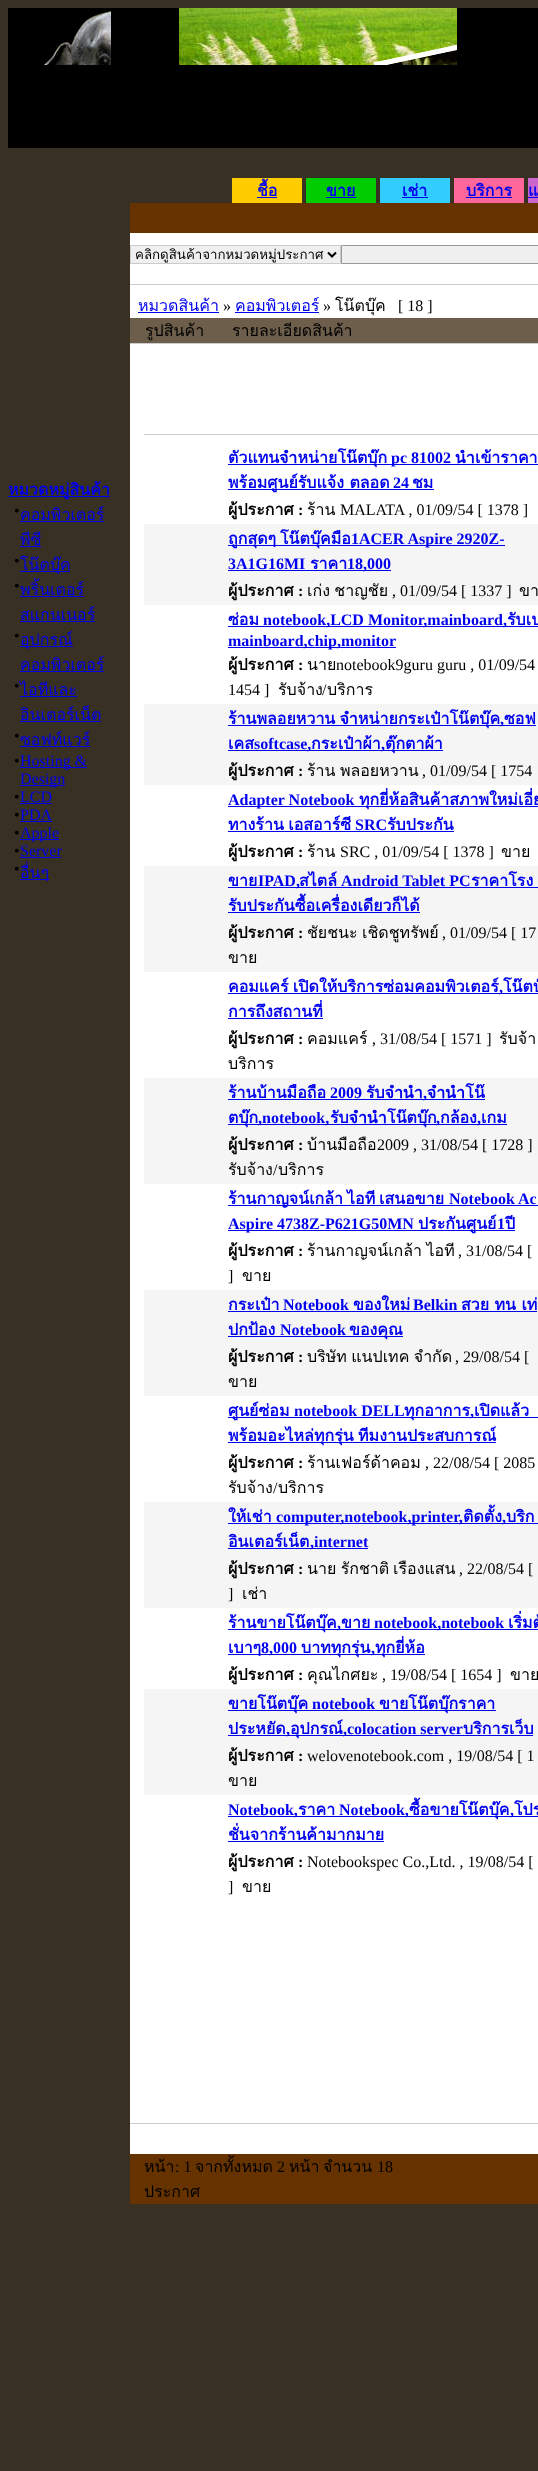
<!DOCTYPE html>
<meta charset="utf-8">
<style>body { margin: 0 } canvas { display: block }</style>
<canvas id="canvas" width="538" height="2471"></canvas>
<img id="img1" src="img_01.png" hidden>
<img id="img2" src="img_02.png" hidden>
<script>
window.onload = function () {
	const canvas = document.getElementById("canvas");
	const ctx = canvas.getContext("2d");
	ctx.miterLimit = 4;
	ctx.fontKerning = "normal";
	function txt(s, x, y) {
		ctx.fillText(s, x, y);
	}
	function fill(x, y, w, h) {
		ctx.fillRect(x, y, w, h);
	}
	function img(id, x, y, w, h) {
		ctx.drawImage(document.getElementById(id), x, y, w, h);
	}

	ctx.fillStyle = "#393024";
	fill(0, 0, 538, 2471);
	ctx.fillStyle = "#000000";
	fill(8, 8, 530, 140);
	img("img1", 43, 11, 68, 54);
	img("img2", 179, 8, 278, 57);
	ctx.fillStyle = "#0000EE";
	fill(8, 496, 102, 1);
	fill(20, 521, 84, 1);
	fill(20, 546, 21, 1);
	fill(20, 571, 50, 1);
	fill(20, 596, 64, 1);
	fill(20, 621, 75, 1);
	fill(20, 646, 53, 1);
	fill(20, 671, 84, 1);
	fill(20, 696, 57, 1);
	fill(20, 721, 81, 1);
	fill(20, 746, 70, 1);
	fill(20, 767, 67, 1);
	fill(20, 785, 45, 1);
	fill(20, 803, 32, 1);
	fill(20, 821, 32, 1);
	fill(20, 839, 39, 1);
	fill(20, 857, 41, 1);
	fill(20, 879, 29, 1);
	ctx.fillStyle = "#FFCC00";
	fill(232, 178, 70, 25);
	ctx.fillStyle = "#0000EE";
	fill(257, 197, 20, 1);
	ctx.fillStyle = "#00CC00";
	fill(306, 178, 70, 25);
	ctx.fillStyle = "#0000EE";
	fill(326, 197, 30, 1);
	ctx.fillStyle = "#33CCFF";
	fill(380, 178, 70, 25);
	ctx.fillStyle = "#0000EE";
	fill(402, 197, 26, 1);
	ctx.fillStyle = "#FF6699";
	fill(454, 178, 70, 25);
	ctx.fillStyle = "#0000EE";
	fill(466, 197, 46, 1);
	ctx.fillStyle = "#CC66CC";
	fill(528, 178, 10, 25);
	ctx.fillStyle = "#0000EE";
	fill(528, 197, 10, 1);
	ctx.fillStyle = "#FFFFFF";
	fill(130, 233, 408, 1921);
	ctx.fillStyle = "#663300";
	fill(130, 203, 408, 30);
	ctx.fillStyle = "#EFEFEF";
	ctx.beginPath();
	ctx.rect(130.5, 245.5, 210, 18);
	ctx.fill();
	ctx.strokeStyle = "#CCCCCC";
	ctx.stroke();
	ctx.beginPath();
	ctx.moveTo(328, 252.5);
	ctx.lineTo(332, 256.5);
	ctx.lineTo(336, 252.5);
	ctx.strokeStyle = "#000000";
	ctx.lineWidth = 2;
	ctx.stroke();
	ctx.fillStyle = "#F0F0F0";
	ctx.beginPath();
	ctx.rect(341.5, 245.5, 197, 18);
	ctx.fill();
	ctx.strokeStyle = "#999999";
	ctx.lineWidth = 1;
	ctx.stroke();
	ctx.fillStyle = "#CCCCCC";
	fill(130, 284, 408, 1);
	ctx.fillStyle = "#0000EE";
	fill(138, 312, 81, 1);
	fill(235, 312, 84, 1);
	ctx.fillStyle = "#6D5E4B";
	fill(130, 318, 408, 25);
	ctx.fillStyle = "#CCCCCC";
	fill(130, 343, 408, 1);
	fill(144, 434, 394, 1);
	ctx.fillStyle = "#0000EE";
	fill(228, 464, 310, 1);
	fill(228, 489, 206, 1);
	ctx.fillStyle = "#F5F5F5";
	fill(144, 524, 394, 81);
	ctx.fillStyle = "#0000EE";
	fill(228, 545, 277, 1);
	fill(228, 570, 163, 1);
	fill(228, 626, 310, 1);
	fill(228, 647, 168, 1);
	ctx.fillStyle = "#F5F5F5";
	fill(144, 704, 394, 81);
	ctx.fillStyle = "#0000EE";
	fill(228, 725, 308, 1);
	fill(228, 750, 215, 1);
	fill(228, 806, 310, 1);
	fill(228, 831, 226, 1);
	ctx.fillStyle = "#F5F5F5";
	fill(144, 866, 394, 106);
	ctx.fillStyle = "#0000EE";
	fill(228, 887, 310, 1);
	fill(228, 912, 192, 1);
	fill(228, 993, 310, 1);
	fill(228, 1018, 95, 1);
	ctx.fillStyle = "#F5F5F5";
	fill(144, 1078, 394, 106);
	ctx.fillStyle = "#0000EE";
	fill(228, 1099, 257, 1);
	fill(228, 1124, 279, 1);
	fill(228, 1205, 310, 1);
	fill(228, 1230, 287, 1);
	ctx.fillStyle = "#F5F5F5";
	fill(144, 1290, 394, 106);
	ctx.fillStyle = "#0000EE";
	fill(228, 1311, 309, 1);
	fill(228, 1336, 175, 1);
	fill(228, 1417, 310, 1);
	fill(228, 1442, 268, 1);
	ctx.fillStyle = "#F5F5F5";
	fill(144, 1502, 394, 106);
	ctx.fillStyle = "#0000EE";
	fill(228, 1523, 310, 1);
	fill(228, 1548, 140, 1);
	fill(228, 1629, 310, 1);
	fill(228, 1654, 197, 1);
	ctx.fillStyle = "#F5F5F5";
	fill(144, 1689, 394, 106);
	ctx.fillStyle = "#0000EE";
	fill(228, 1710, 268, 1);
	fill(228, 1735, 305, 1);
	fill(228, 1816, 310, 1);
	fill(228, 1841, 156, 1);
	ctx.fillStyle = "#CCCCCC";
	fill(130, 2123, 408, 1);
	ctx.fillStyle = "#663300";
	fill(130, 2154, 408, 50);
	ctx.font = "bold 16px Loma";
	ctx.fillStyle = "#0000EE";
	txt("หมวดหมู่สินค้า", 8, 495);
	ctx.font = "16px Loma";
	txt("คอมพิวเตอร์", 20, 520);
	txt("พีซี", 20, 545);
	ctx.font = "16px Liberation Serif";
	ctx.fillStyle = "#000000";
	txt("•", 14, 516);
	txt("•", 14, 566);
	ctx.font = "16px Loma";
	ctx.fillStyle = "#0000EE";
	txt("โน๊ตบุ๊ค", 20, 570);
	ctx.font = "16px Liberation Serif";
	ctx.fillStyle = "#000000";
	txt("•", 14, 591);
	ctx.font = "16px Loma";
	ctx.fillStyle = "#0000EE";
	txt("พริ้นเตอร์", 20, 595);
	txt("สแกนเนอร์", 20, 620);
	txt("คอมพิวเตอร์", 20, 670);
	ctx.font = "16px Liberation Serif";
	ctx.fillStyle = "#000000";
	txt("•", 14, 641);
	ctx.font = "16px Loma";
	ctx.fillStyle = "#0000EE";
	txt("อุปกรณ์", 20, 645);
	txt("อินเตอร์เน็ต", 20, 720);
	ctx.font = "16px Liberation Serif";
	ctx.fillStyle = "#000000";
	txt("•", 14, 691);
	ctx.font = "16px Loma";
	ctx.fillStyle = "#0000EE";
	txt("ไอทีและ", 20, 695);
	ctx.font = "16px Liberation Serif";
	ctx.fillStyle = "#000000";
	txt("•", 14, 741);
	ctx.font = "16px Loma";
	ctx.fillStyle = "#0000EE";
	txt("ซอฟท์แวร์", 20, 745);
	ctx.font = "16px Liberation Serif";
	ctx.fillStyle = "#000000";
	txt("•", 14, 766);
	ctx.fillStyle = "#0000EE";
	txt("Hosting &", 20, 766);
	txt("Design", 20, 784);
	ctx.fillStyle = "#000000";
	txt("•", 14, 802);
	ctx.fillStyle = "#0000EE";
	txt("LCD", 20, 802);
	ctx.fillStyle = "#000000";
	txt("•", 14, 820);
	ctx.fillStyle = "#0000EE";
	txt("PDA", 20, 820);
	ctx.fillStyle = "#000000";
	txt("•", 14, 838);
	ctx.fillStyle = "#0000EE";
	txt("Apple", 20, 838);
	ctx.fillStyle = "#000000";
	txt("•", 14, 856);
	ctx.fillStyle = "#0000EE";
	txt("Server", 20, 856);
	ctx.fillStyle = "#000000";
	txt("•", 14, 874);
	ctx.font = "16px Loma";
	ctx.fillStyle = "#0000EE";
	txt("อื่นๆ", 20, 878);
	ctx.font = "bold 16px Loma";
	txt("ชื้อ", 257, 196);
	txt("ขาย", 326, 196);
	txt("เช่า", 402, 196);
	txt("บริการ", 466, 196);
	txt("แ", 528, 196);
	ctx.font = "13.3px Loma";
	ctx.fillStyle = "#000000";
	txt("คลิกดูสินค้าจากหมวดหมู่ประกาศ", 135, 259);
	ctx.font = "16px Loma";
	ctx.fillStyle = "#0000EE";
	txt("หมวดสินค้า", 138, 311);
	ctx.font = "16px Liberation Serif";
	ctx.fillStyle = "#000000";
	txt("»", 223, 311);
	ctx.font = "16px Loma";
	ctx.fillStyle = "#0000EE";
	txt("คอมพิวเตอร์", 235, 311);
	ctx.font = "16px Liberation Serif";
	ctx.fillStyle = "#000000";
	txt("»", 323, 311);
	ctx.font = "16px Loma";
	txt("โน๊ตบุ๊ค", 335, 311);
	ctx.font = "16px Liberation Serif";
	txt("[ 18 ]", 398, 311);
	ctx.font = "16px Loma";
	txt("รูปสินค้า", 145, 336);
	txt("รายละเอียดสินค้า", 232, 336);
	ctx.font = "bold 16px Loma";
	ctx.fillStyle = "#0000EE";
	txt("ตัวแทนจำหน่ายโน๊ตบุ๊ก", 228, 463);
	ctx.font = "bold 16px Liberation Serif";
	txt("pc 81002", 391, 463);
	ctx.font = "bold 16px Loma";
	txt("นำเข้าราคา", 455, 463);
	txt("พร้อมศูนย์รับแจ้ง ตลอด", 228, 488);
	ctx.font = "bold 16px Liberation Serif";
	txt("24", 393, 488);
	ctx.font = "bold 16px Loma";
	txt("ชม", 412, 488);
	ctx.fillStyle = "#000000";
	txt("ผู้ประกาศ", 228, 515);
	ctx.font = "16px Liberation Serif";
	txt("MALATA , 01/09/54 [ 1378 ]", 340, 515);
	ctx.font = "bold 16px Liberation Serif";
	txt(":", 298, 515);
	ctx.font = "16px Loma";
	txt("ร้าน", 307, 515);
	ctx.font = "bold 16px Loma";
	ctx.fillStyle = "#0000EE";
	txt("ถูกสุดๆ", 228, 544);
	txt("โน๊ตบุ๊คมือ", 280, 544);
	ctx.font = "bold 16px Liberation Serif";
	txt("1ACER Aspire 2920Z-", 351, 544);
	txt("3A1G16MI", 228, 569);
	ctx.font = "bold 16px Loma";
	txt("ราคา", 310, 569);
	ctx.font = "bold 16px Liberation Serif";
	txt("18,000", 347, 569);
	ctx.font = "bold 16px Loma";
	ctx.fillStyle = "#000000";
	txt("ผู้ประกาศ", 228, 596);
	ctx.font = "bold 16px Liberation Serif";
	txt(":", 298, 596);
	ctx.wordSpacing = "-1px";
	ctx.font = "16px Loma";
	txt("เก่ง ชาญชัย", 307, 596);
	ctx.wordSpacing = "0px";
	ctx.font = "16px Liberation Serif";
	txt(", 01/09/54 [ 1337 ]", 392, 596);
	ctx.font = "16px Loma";
	txt("ขา", 519, 596);
	ctx.font = "bold 16px Loma";
	ctx.fillStyle = "#0000EE";
	txt("ซ่อม", 228, 625);
	ctx.font = "bold 16px Liberation Serif";
	txt("notebook,LCD Monitor,mainboard,", 263, 625);
	ctx.font = "bold 16px Loma";
	txt("รับเป", 507, 625);
	ctx.font = "bold 16px Liberation Serif";
	txt("mainboard,chip,monitor", 228, 646);
	ctx.font = "bold 16px Loma";
	ctx.fillStyle = "#000000";
	txt("ผู้ประกาศ", 228, 670);
	ctx.font = "bold 16px Liberation Serif";
	txt(":", 298, 670);
	ctx.font = "16px Loma";
	txt("นาย", 307, 670);
	ctx.font = "16px Liberation Serif";
	txt("notebook9guru guru , 01/09/54", 336, 670);
	txt("1454 ]", 228, 695);
	ctx.font = "16px Loma";
	txt("รับจ้าง", 278, 695);
	ctx.font = "16px Liberation Serif";
	txt("/", 322, 695);
	ctx.font = "16px Loma";
	txt("บริการ", 327, 695);
	ctx.wordSpacing = "-1px";
	ctx.font = "bold 16px Loma";
	ctx.fillStyle = "#0000EE";
	txt("ร้านพลอยหวาน จำหน่ายกระเป๋าโน๊ตบุ๊ค", 228, 724);
	ctx.wordSpacing = "0px";
	ctx.font = "bold 16px Liberation Serif";
	txt(",", 500, 724);
	ctx.font = "bold 16px Loma";
	txt("ซอฟ", 504, 724);
	txt("เคส", 228, 749);
	ctx.font = "bold 16px Liberation Serif";
	txt("softcase,", 254, 749);
	ctx.font = "bold 16px Loma";
	txt("กระเป๋าผ้า", 311, 749);
	ctx.font = "bold 16px Liberation Serif";
	txt(",", 381, 749);
	ctx.font = "bold 16px Loma";
	txt("ตุ๊กตาผ้า", 385, 749);
	ctx.fillStyle = "#000000";
	txt("ผู้ประกาศ", 228, 776);
	ctx.font = "16px Liberation Serif";
	txt(", 01/09/54 [ 1754", 422, 776);
	ctx.font = "bold 16px Liberation Serif";
	txt(":", 298, 776);
	ctx.wordSpacing = "-1px";
	ctx.font = "16px Loma";
	txt("ร้าน พลอยหวาน", 307, 776);
	ctx.wordSpacing = "0px";
	ctx.font = "bold 16px Liberation Serif";
	ctx.fillStyle = "#0000EE";
	txt("Adapter Notebook", 228, 805);
	ctx.font = "bold 16px Loma";
	txt("ทุกยี่ห้อสินค้าสภาพใหม่เอี่ย", 359, 805);
	ctx.wordSpacing = "-1px";
	txt("ทางร้าน เอสอาร์ซี", 228, 830);
	ctx.wordSpacing = "0px";
	ctx.font = "bold 16px Liberation Serif";
	txt("SRC", 355, 830);
	ctx.font = "bold 16px Loma";
	txt("รับประกัน", 387, 830);
	ctx.fillStyle = "#000000";
	txt("ผู้ประกาศ", 228, 857);
	ctx.font = "16px Liberation Serif";
	txt("SRC , 01/09/54 [ 1378 ]", 340, 857);
	ctx.font = "16px Loma";
	txt("ขาย", 501, 857);
	ctx.font = "bold 16px Liberation Serif";
	txt(":", 298, 857);
	ctx.font = "16px Loma";
	txt("ร้าน", 307, 857);
	ctx.font = "bold 16px Loma";
	ctx.fillStyle = "#0000EE";
	txt("ขาย", 228, 886);
	ctx.font = "bold 16px Liberation Serif";
	txt("IPAD,", 258, 886);
	ctx.font = "bold 16px Loma";
	txt("สไตล์", 299, 886);
	ctx.font = "bold 16px Liberation Serif";
	txt("Android Tablet PC", 341, 886);
	ctx.font = "bold 16px Loma";
	txt("ราคาโรง", 471, 886);
	txt("รับประกันซื้อเครื่องเดียวก็ได้", 228, 911);
	ctx.fillStyle = "#000000";
	txt("ผู้ประกาศ", 228, 938);
	ctx.font = "bold 16px Liberation Serif";
	txt(":", 298, 938);
	ctx.wordSpacing = "-1px";
	ctx.font = "16px Loma";
	txt("ชัยชนะ เชิดชูทรัพย์", 307, 938);
	ctx.wordSpacing = "0px";
	ctx.font = "16px Liberation Serif";
	txt(", 01/09/54 [ 17", 442, 938);
	ctx.font = "16px Loma";
	txt("ขาย", 228, 963);
	ctx.wordSpacing = "-1px";
	ctx.font = "bold 16px Loma";
	ctx.fillStyle = "#0000EE";
	txt("คอมแคร์ เปิดให้บริการซ่อมคอมพิวเตอร์", 228, 992);
	ctx.wordSpacing = "0px";
	ctx.font = "bold 16px Liberation Serif";
	txt(",", 499, 992);
	ctx.font = "bold 16px Loma";
	txt("โน๊ตบุ๊", 503, 992);
	txt("การถึงสถานที่", 228, 1017);
	ctx.fillStyle = "#000000";
	txt("ผู้ประกาศ", 228, 1044);
	ctx.font = "bold 16px Liberation Serif";
	txt(":", 298, 1044);
	ctx.font = "16px Loma";
	txt("คอมแคร์", 307, 1044);
	ctx.font = "16px Liberation Serif";
	txt(", 31/08/54 [ 1571 ]", 372, 1044);
	ctx.font = "16px Loma";
	txt("รับจ้า", 499, 1044);
	txt("บริการ", 228, 1069);
	ctx.font = "bold 16px Loma";
	ctx.fillStyle = "#0000EE";
	txt("ร้านบ้านมือถือ", 228, 1098);
	ctx.font = "bold 16px Liberation Serif";
	txt("2009", 330, 1098);
	ctx.font = "bold 16px Loma";
	txt("รับจำนำ", 366, 1098);
	ctx.font = "bold 16px Liberation Serif";
	txt(",", 423, 1098);
	ctx.font = "bold 16px Loma";
	txt("จำนำโน๊", 427, 1098);
	txt("ตบุ๊ก", 228, 1123);
	ctx.font = "bold 16px Liberation Serif";
	txt(",notebook,", 258, 1123);
	ctx.font = "bold 16px Loma";
	txt("รับจำนำโน๊ตบุ๊ก", 330, 1123);
	ctx.font = "bold 16px Liberation Serif";
	txt(",", 436, 1123);
	ctx.font = "bold 16px Loma";
	txt("กล้อง", 440, 1123);
	ctx.font = "bold 16px Liberation Serif";
	txt(",", 477, 1123);
	ctx.font = "bold 16px Loma";
	txt("เกม", 481, 1123);
	ctx.fillStyle = "#000000";
	txt("ผู้ประกาศ", 228, 1150);
	ctx.font = "16px Liberation Serif";
	txt("2009 , 31/08/54 [ 1728 ]", 377, 1150);
	ctx.font = "bold 16px Liberation Serif";
	txt(":", 298, 1150);
	ctx.font = "16px Loma";
	txt("บ้านมือถือ", 307, 1150);
	txt("รับจ้าง", 228, 1175);
	ctx.font = "16px Liberation Serif";
	txt("/", 273, 1175);
	ctx.font = "16px Loma";
	txt("บริการ", 278, 1175);
	ctx.font = "bold 16px Loma";
	ctx.fillStyle = "#0000EE";
	txt("ร้านกาญจน์เกล้า", 228, 1204);
	txt("ไอที", 347, 1204);
	txt("เสนอขาย", 379, 1204);
	ctx.font = "bold 16px Liberation Serif";
	txt("Notebook Ac", 449, 1204);
	txt("Aspire 4738Z-P621G50MN", 228, 1229);
	ctx.font = "bold 16px Loma";
	txt("ประกันศูนย์", 418, 1229);
	ctx.font = "bold 16px Liberation Serif";
	txt("1", 497, 1229);
	ctx.font = "bold 16px Loma";
	txt("ปี", 505, 1229);
	ctx.fillStyle = "#000000";
	txt("ผู้ประกาศ", 228, 1256);
	ctx.font = "16px Liberation Serif";
	txt(", 31/08/54 [", 458, 1256);
	ctx.font = "bold 16px Liberation Serif";
	txt(":", 298, 1256);
	ctx.wordSpacing = "-1px";
	ctx.font = "16px Loma";
	txt("ร้านกาญจน์เกล้า ไอที", 307, 1256);
	ctx.wordSpacing = "0px";
	ctx.font = "16px Liberation Serif";
	txt("]", 228, 1281);
	ctx.font = "16px Loma";
	txt("ขาย", 242, 1281);
	ctx.font = "bold 16px Loma";
	ctx.fillStyle = "#0000EE";
	txt("กระเป๋า", 228, 1310);
	ctx.font = "bold 16px Liberation Serif";
	txt("Notebook", 283, 1310);
	ctx.font = "bold 16px Loma";
	txt("ของใหม่", 353, 1310);
	ctx.font = "bold 16px Liberation Serif";
	txt("Belkin", 413, 1310);
	ctx.font = "bold 16px Loma";
	txt("สวย ทน เท่", 461, 1310);
	txt("ปกป้อง", 228, 1335);
	ctx.font = "bold 16px Liberation Serif";
	txt("Notebook", 280, 1335);
	ctx.font = "bold 16px Loma";
	txt("ของคุณ", 349, 1335);
	ctx.fillStyle = "#000000";
	txt("ผู้ประกาศ", 228, 1362);
	ctx.font = "bold 16px Liberation Serif";
	txt(":", 298, 1362);
	ctx.wordSpacing = "-1px";
	ctx.font = "16px Loma";
	txt("บริษัท แนปเทค จำกัด", 307, 1362);
	ctx.wordSpacing = "0px";
	ctx.font = "16px Liberation Serif";
	txt(", 29/08/54 [", 455, 1362);
	ctx.font = "16px Loma";
	txt("ขาย", 228, 1387);
	ctx.font = "bold 16px Loma";
	ctx.fillStyle = "#0000EE";
	txt("ศูนย์ซ่อม", 228, 1416);
	ctx.font = "bold 16px Liberation Serif";
	txt("notebook DELL", 294, 1416);
	ctx.font = "bold 16px Loma";
	txt("ทุกอาการ", 404, 1416);
	ctx.font = "bold 16px Liberation Serif";
	txt(",", 470, 1416);
	ctx.font = "bold 16px Loma";
	txt("เปิดแล้ว", 474, 1416);
	ctx.wordSpacing = "-1px";
	txt("พร้อมอะไหล่ทุกรุ่น ทีมงานประสบการณ์", 228, 1441);
	ctx.wordSpacing = "0px";
	ctx.fillStyle = "#000000";
	txt("ผู้ประกาศ", 228, 1468);
	ctx.font = "16px Liberation Serif";
	txt(", 22/08/54 [ 2085", 425, 1468);
	ctx.font = "bold 16px Liberation Serif";
	txt(":", 298, 1468);
	ctx.font = "16px Loma";
	txt("ร้านเฟอร์ด้าคอม", 307, 1468);
	txt("รับจ้าง", 228, 1493);
	ctx.font = "16px Liberation Serif";
	txt("/", 273, 1493);
	ctx.font = "16px Loma";
	txt("บริการ", 278, 1493);
	ctx.font = "bold 16px Loma";
	ctx.fillStyle = "#0000EE";
	txt("ให้เช่า", 228, 1522);
	ctx.font = "bold 16px Liberation Serif";
	txt("computer,notebook,printer,", 276, 1522);
	ctx.font = "bold 16px Loma";
	txt("ติดตั้ง", 463, 1522);
	ctx.font = "bold 16px Liberation Serif";
	txt(",", 502, 1522);
	ctx.font = "bold 16px Loma";
	txt("บริก", 506, 1522);
	txt("อินเตอร์เน็ต", 228, 1547);
	ctx.font = "bold 16px Liberation Serif";
	txt(",internet", 310, 1547);
	ctx.font = "bold 16px Loma";
	ctx.fillStyle = "#000000";
	txt("ผู้ประกาศ", 228, 1574);
	ctx.font = "bold 16px Liberation Serif";
	txt(":", 298, 1574);
	ctx.wordSpacing = "-1px";
	ctx.font = "16px Loma";
	txt("นาย รักชาติ", 307, 1574);
	ctx.wordSpacing = "0px";
	txt("เรืองแสน", 393, 1574);
	ctx.font = "16px Liberation Serif";
	txt(", 22/08/54 [", 459, 1574);
	txt("]", 228, 1599);
	ctx.font = "16px Loma";
	txt("เช่า", 242, 1599);
	ctx.font = "bold 16px Loma";
	ctx.fillStyle = "#0000EE";
	txt("ร้านขายโน๊ตบุ๊ค", 228, 1628);
	ctx.font = "bold 16px Liberation Serif";
	txt(",", 337, 1628);
	ctx.font = "bold 16px Loma";
	txt("ขาย", 341, 1628);
	ctx.font = "bold 16px Liberation Serif";
	txt("notebook,notebook", 374, 1628);
	ctx.font = "bold 16px Loma";
	txt("เริ่มต้", 508, 1628);
	txt("เบาๆ", 228, 1653);
	ctx.font = "bold 16px Liberation Serif";
	txt("8,000", 261, 1653);
	ctx.font = "bold 16px Loma";
	txt("บาททุกรุ่น", 301, 1653);
	ctx.font = "bold 16px Liberation Serif";
	txt(",", 371, 1653);
	ctx.font = "bold 16px Loma";
	txt("ทุกยี่ห้อ", 375, 1653);
	ctx.fillStyle = "#000000";
	txt("ผู้ประกาศ", 228, 1680);
	ctx.font = "bold 16px Liberation Serif";
	txt(":", 298, 1680);
	ctx.font = "16px Loma";
	txt("คุณไกศยะ", 307, 1680);
	ctx.font = "16px Liberation Serif";
	txt(", 19/08/54 [ 1654 ]", 382, 1680);
	ctx.font = "16px Loma";
	txt("ขาย", 510, 1680);
	ctx.font = "bold 16px Loma";
	ctx.fillStyle = "#0000EE";
	txt("ขายโน๊ตบุ๊ค", 228, 1709);
	ctx.font = "bold 16px Liberation Serif";
	txt("notebook", 312, 1709);
	ctx.font = "bold 16px Loma";
	txt("ขายโน๊ตบุ๊กราคา", 379, 1709);
	txt("ประหยัด", 228, 1734);
	txt("บริการเว็บ", 463, 1734);
	ctx.font = "bold 16px Liberation Serif";
	txt(",", 286, 1734);
	ctx.font = "bold 16px Loma";
	txt("อุปกรณ์", 290, 1734);
	ctx.font = "bold 16px Liberation Serif";
	txt(",colocation server", 343, 1734);
	ctx.font = "bold 16px Loma";
	ctx.fillStyle = "#000000";
	txt("ผู้ประกาศ", 228, 1761);
	ctx.font = "bold 16px Liberation Serif";
	txt(":", 298, 1761);
	ctx.font = "16px Liberation Serif";
	txt("welovenotebook.com , 19/08/54 [ 1", 307, 1761);
	ctx.font = "16px Loma";
	txt("ขาย", 228, 1786);
	ctx.font = "bold 16px Liberation Serif";
	ctx.fillStyle = "#0000EE";
	txt("Notebook,", 228, 1815);
	ctx.font = "bold 16px Loma";
	txt("ราคา", 298, 1815);
	ctx.font = "bold 16px Liberation Serif";
	txt("Notebook,", 339, 1815);
	ctx.font = "bold 16px Loma";
	txt("ซื้อขายโน๊ตบุ๊ค", 409, 1815);
	ctx.font = "bold 16px Liberation Serif";
	txt(",", 510, 1815);
	ctx.font = "bold 16px Loma";
	txt("โปร", 514, 1815);
	txt("ชั่นจากร้านค้ามากมาย", 228, 1840);
	ctx.fillStyle = "#000000";
	txt("ผู้ประกาศ", 228, 1867);
	ctx.font = "bold 16px Liberation Serif";
	txt(":", 298, 1867);
	ctx.font = "16px Liberation Serif";
	txt("Notebookspec Co.,Ltd. , 19/08/54 [", 307, 1867);
	txt("]", 228, 1892);
	ctx.font = "16px Loma";
	txt("ขาย", 242, 1892);
	txt("หน้า", 144, 2172);
	ctx.font = "16px Liberation Serif";
	txt(": 1", 175, 2172);
	ctx.font = "16px Loma";
	txt("จากทั้งหมด", 195, 2172);
	ctx.font = "16px Liberation Serif";
	txt("2", 277, 2172);
	ctx.font = "16px Loma";
	txt("หน้า", 289, 2172);
	txt("จำนวน", 323, 2172);
	ctx.font = "16px Liberation Serif";
	txt("18", 377, 2172);
	ctx.font = "16px Loma";
	txt("ประกาศ", 144, 2197);
};
</script>
